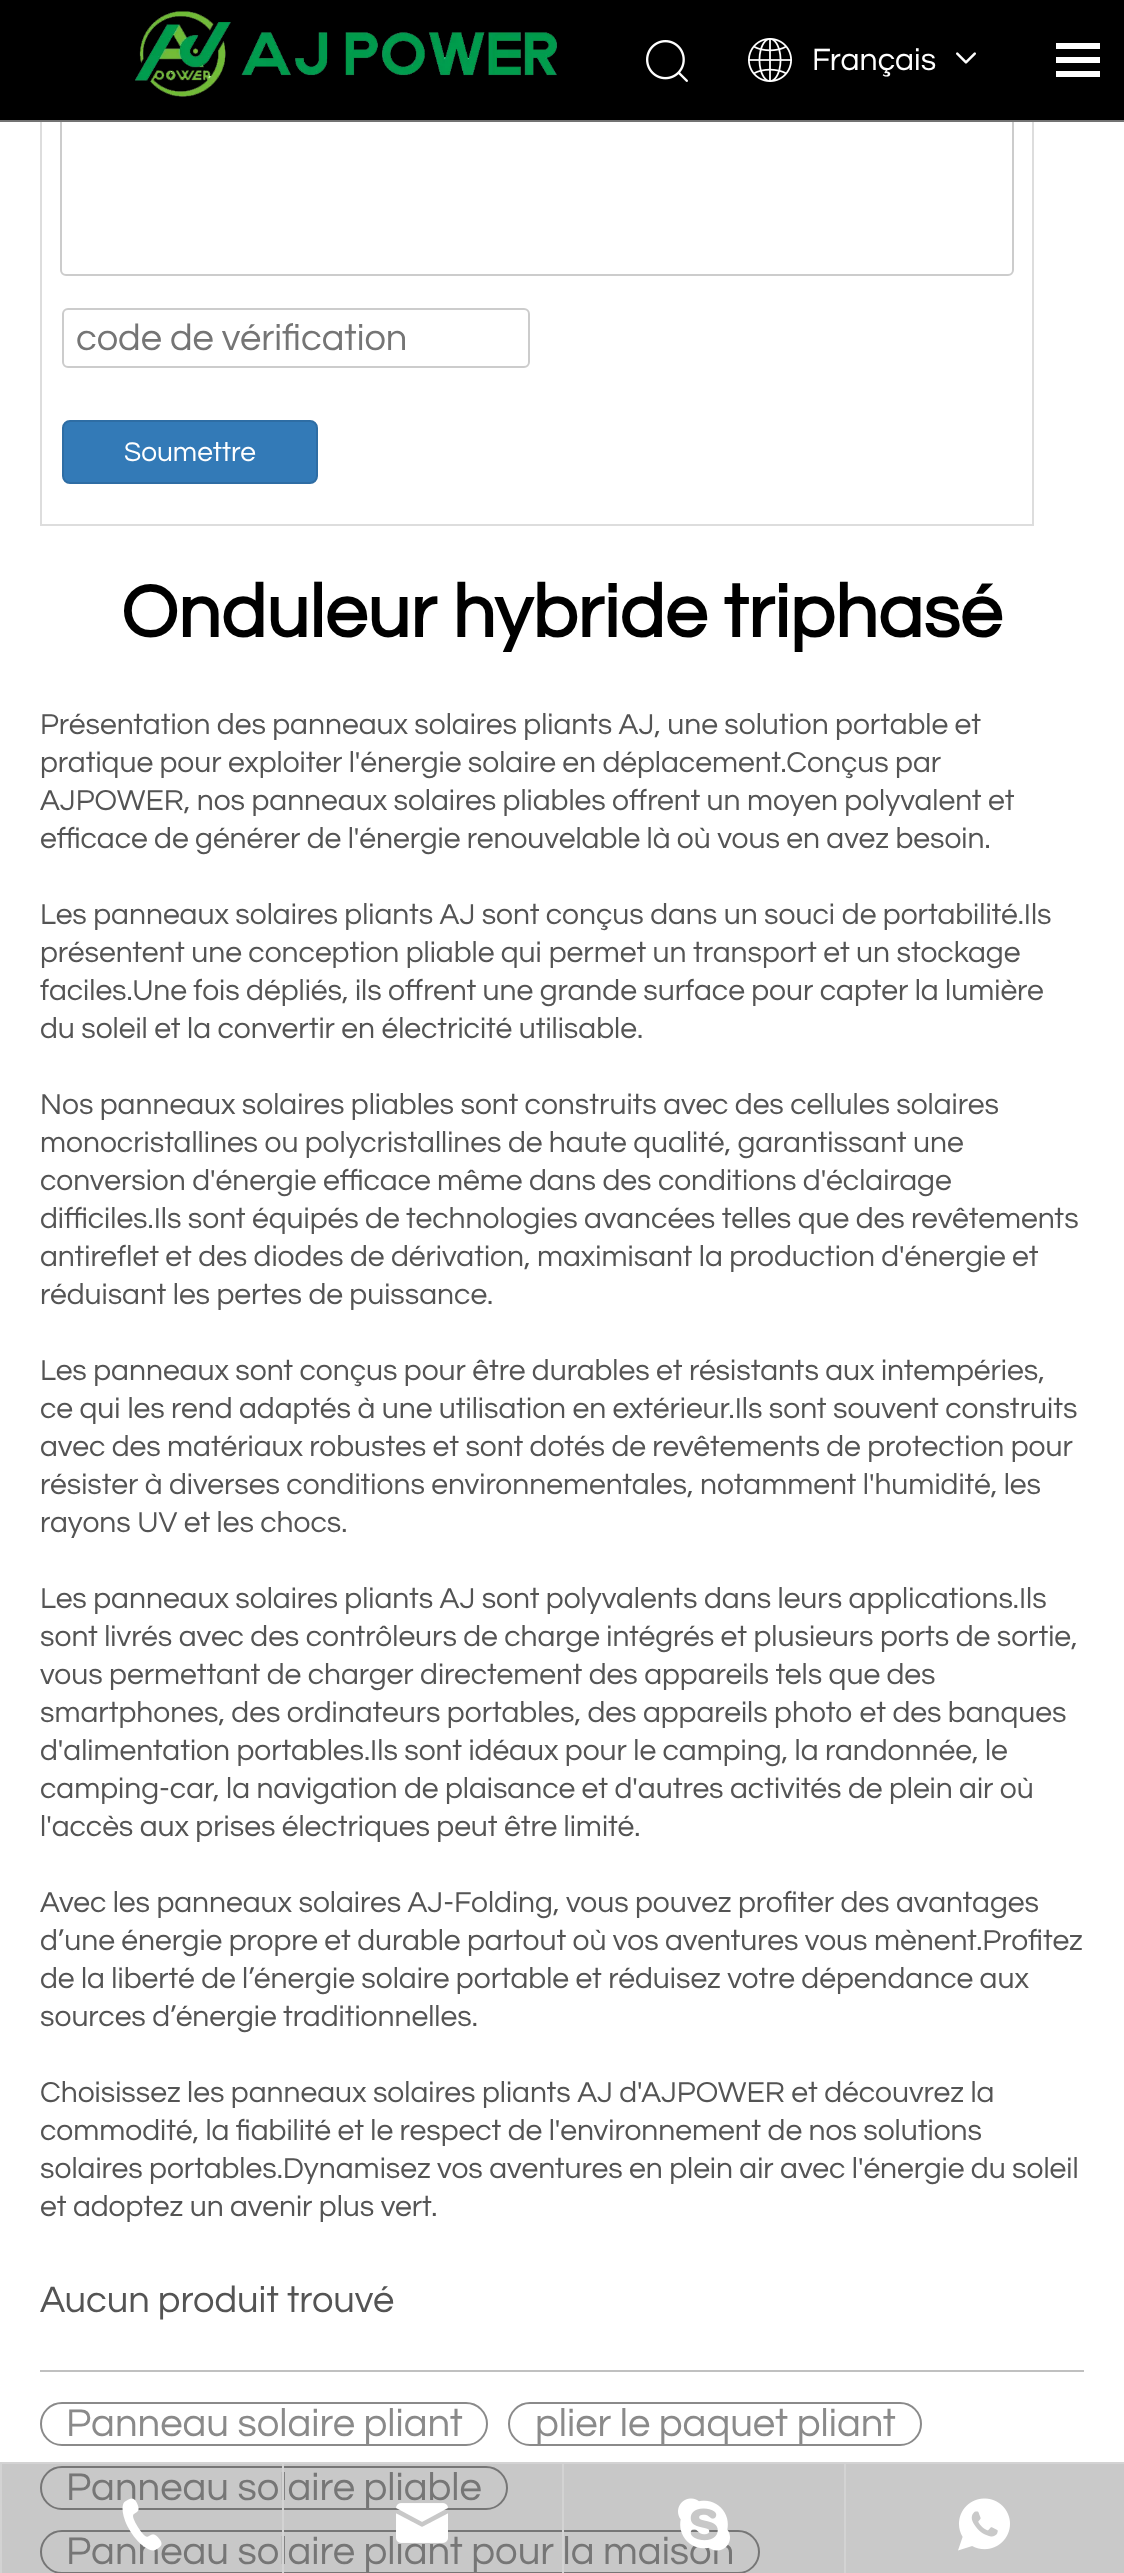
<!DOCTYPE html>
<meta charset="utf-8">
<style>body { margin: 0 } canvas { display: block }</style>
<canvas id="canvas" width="1124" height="2573"></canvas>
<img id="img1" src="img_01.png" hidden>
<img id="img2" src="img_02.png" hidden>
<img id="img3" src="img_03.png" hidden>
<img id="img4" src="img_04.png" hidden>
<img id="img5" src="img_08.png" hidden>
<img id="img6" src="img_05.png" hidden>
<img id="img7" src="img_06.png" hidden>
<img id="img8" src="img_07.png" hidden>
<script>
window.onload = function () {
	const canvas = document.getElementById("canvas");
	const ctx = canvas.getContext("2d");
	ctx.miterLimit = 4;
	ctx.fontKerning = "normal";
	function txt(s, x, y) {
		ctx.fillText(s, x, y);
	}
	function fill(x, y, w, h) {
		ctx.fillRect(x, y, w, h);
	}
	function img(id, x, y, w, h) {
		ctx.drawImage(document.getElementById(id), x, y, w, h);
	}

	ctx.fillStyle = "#FFFFFF";
	fill(0, 0, 1124, 2573);
	ctx.strokeStyle = "#DDDDDD";
	ctx.lineWidth = 2;
	ctx.strokeRect(41, -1, 992, 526);
	ctx.beginPath();
	ctx.roundRect(61, 81, 952, 194, 5);
	ctx.strokeStyle = "#CCCCCC";
	ctx.stroke();
	ctx.fillStyle = "#000000";
	fill(0, 0, 1124, 120);
	ctx.fillStyle = "#737373";
	fill(0, 120, 1124, 2);
	img("img1", 135, 11, 422, 86);
	img("img2", 646, 40, 42, 42);
	img("img3", 748, 38, 44, 44);
	img("img4", 956, 52, 20, 12);
	ctx.fillStyle = "#FFFFFF";
	ctx.beginPath();
	ctx.moveTo(1100, 71);
	ctx.lineTo(1100, 77);
	ctx.lineTo(1056, 77);
	ctx.lineTo(1056, 71);
	ctx.closePath();
	ctx.moveTo(1100, 57);
	ctx.lineTo(1100, 63);
	ctx.lineTo(1056, 63);
	ctx.lineTo(1056, 57);
	ctx.closePath();
	ctx.moveTo(1100, 43);
	ctx.lineTo(1100, 49);
	ctx.lineTo(1056, 49);
	ctx.lineTo(1056, 43);
	ctx.closePath();
	ctx.fill();
	ctx.beginPath();
	ctx.roundRect(63, 309, 466, 58, 5);
	ctx.stroke();
	ctx.fillStyle = "#337AB7";
	ctx.beginPath();
	ctx.roundRect(63, 421, 254, 62, 7);
	ctx.fill();
	ctx.strokeStyle = "#2E6DA4";
	ctx.stroke();
	ctx.fillStyle = "#C0C0C0";
	fill(40, 2370, 1044, 2);
	ctx.beginPath();
	ctx.roundRect(41, 2403, 446, 42, 21);
	ctx.strokeStyle = "#8A8A8A";
	ctx.stroke();
	ctx.beginPath();
	ctx.roundRect(509, 2403, 412, 42, 21);
	ctx.stroke();
	ctx.beginPath();
	ctx.roundRect(41, 2467, 466, 42, 21);
	ctx.stroke();
	ctx.beginPath();
	ctx.roundRect(41, 2531, 718, 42, 21);
	ctx.stroke();
	ctx.fillStyle = "#D3D3D3";
	fill(0, 2462, 1124, 2);
	fill(0, 2464, 2, 109);
	fill(844, 2464, 2, 109);
	ctx.fillStyle = "#C9C9C9";
	fill(846, 2464, 278, 109);
	img("img5", 958, 2498, 52, 53);
	ctx.font = "32px Questrial";
	ctx.fillStyle = "#FFFFFF";
	txt("Français", 812, 70);
	ctx.font = "38px Questrial";
	ctx.fillStyle = "#757575";
	txt("code de vérification", 76, 350);
	ctx.font = "28px Questrial";
	ctx.fillStyle = "#FFFFFF";
	txt("Soumettre", 124, 461);
	ctx.font = "bold 76px Questrial";
	ctx.fillStyle = "#000000";
	txt("Onduleur hybride triphasé", 121, 637);
	ctx.font = "30px Questrial";
	ctx.fillStyle = "#545454";
	txt("Présentation des panneaux solaires pliants AJ, une solution portable et", 40, 734);
	txt("pratique pour exploiter l'énergie solaire en déplacement.Conçus par", 40, 772);
	txt("AJPOWER, nos panneaux solaires pliables offrent un moyen polyvalent et", 40, 810);
	txt("efficace de générer de l'énergie renouvelable là où vous en avez besoin.", 40, 848);
	txt("Les panneaux solaires pliants AJ sont conçus dans un souci de portabilité.Ils", 40, 924);
	txt("présentent une conception pliable qui permet un transport et un stockage", 40, 962);
	txt("faciles.Une fois dépliés, ils offrent une grande surface pour capter la lumière", 40, 1000);
	txt("du soleil et la convertir en électricité utilisable.", 40, 1038);
	txt("Nos panneaux solaires pliables sont construits avec des cellules solaires", 40, 1114);
	txt("monocristallines ou polycristallines de haute qualité, garantissant une", 40, 1152);
	txt("conversion d'énergie efficace même dans des conditions d'éclairage", 40, 1190);
	txt("difficiles.Ils sont équipés de technologies avancées telles que des revêtements", 40, 1228);
	txt("antireflet et des diodes de dérivation, maximisant la production d'énergie et", 40, 1266);
	txt("réduisant les pertes de puissance.", 40, 1304);
	txt("Les panneaux sont conçus pour être durables et résistants aux intempéries,", 40, 1380);
	txt("ce qui les rend adaptés à une utilisation en extérieur.Ils sont souvent construits", 40, 1418);
	txt("avec des matériaux robustes et sont dotés de revêtements de protection pour", 40, 1456);
	txt("résister à diverses conditions environnementales, notamment l'humidité, les", 40, 1494);
	txt("rayons UV et les chocs.", 40, 1532);
	txt("Les panneaux solaires pliants AJ sont polyvalents dans leurs applications.Ils", 40, 1608);
	txt("sont livrés avec des contrôleurs de charge intégrés et plusieurs ports de sortie,", 40, 1646);
	txt("vous permettant de charger directement des appareils tels que des", 40, 1684);
	txt("smartphones, des ordinateurs portables, des appareils photo et des banques", 40, 1722);
	txt("d'alimentation portables.Ils sont idéaux pour le camping, la randonnée, le", 40, 1760);
	txt("camping-car, la navigation de plaisance et d'autres activités de plein air où", 40, 1798);
	txt("l'accès aux prises électriques peut être limité.", 40, 1836);
	txt("Avec les panneaux solaires AJ-Folding, vous pouvez profiter des avantages", 40, 1912);
	txt("d’une énergie propre et durable partout où vos aventures vous mènent.Profitez", 40, 1950);
	txt("de la liberté de l’énergie solaire portable et réduisez votre dépendance aux", 40, 1988);
	txt("sources d’énergie traditionnelles.", 40, 2026);
	txt("Choisissez les panneaux solaires pliants AJ d'AJPOWER et découvrez la", 40, 2102);
	txt("commodité, la fiabilité et le respect de l'environnement de nos solutions", 40, 2140);
	txt("solaires portables.Dynamisez vos aventures en plein air avec l'énergie du soleil", 40, 2178);
	txt("et adoptez un avenir plus vert.", 40, 2216);
	ctx.font = "38px Questrial";
	txt("Aucun produit trouvé", 40, 2312);
	ctx.font = "40px Questrial";
	ctx.fillStyle = "#8A8A8A";
	txt("Panneau solaire pliant", 66, 2436);
	txt("plier le paquet pliant", 535, 2436);
	txt("Panneau solaire pliable", 66, 2500);
	txt("Panneau solaire pliant pour la maison", 66, 2564);
	ctx.fillStyle = "rgba(74, 74, 74, 0.3)";
	fill(2, 2464, 280, 109);
	img("img6", 122, 2498, 40, 53);
	ctx.fillStyle = "#D3D3D3";
	fill(282, 2464, 2, 109);
	ctx.fillStyle = "rgba(74, 74, 74, 0.3)";
	fill(284, 2464, 278, 109);
	img("img7", 396, 2503, 52, 40);
	ctx.fillStyle = "#D3D3D3";
	fill(562, 2464, 2, 109);
	ctx.fillStyle = "rgba(74, 74, 74, 0.3)";
	fill(564, 2464, 280, 109);
	img("img8", 678, 2498, 52, 53);
};
</script>
